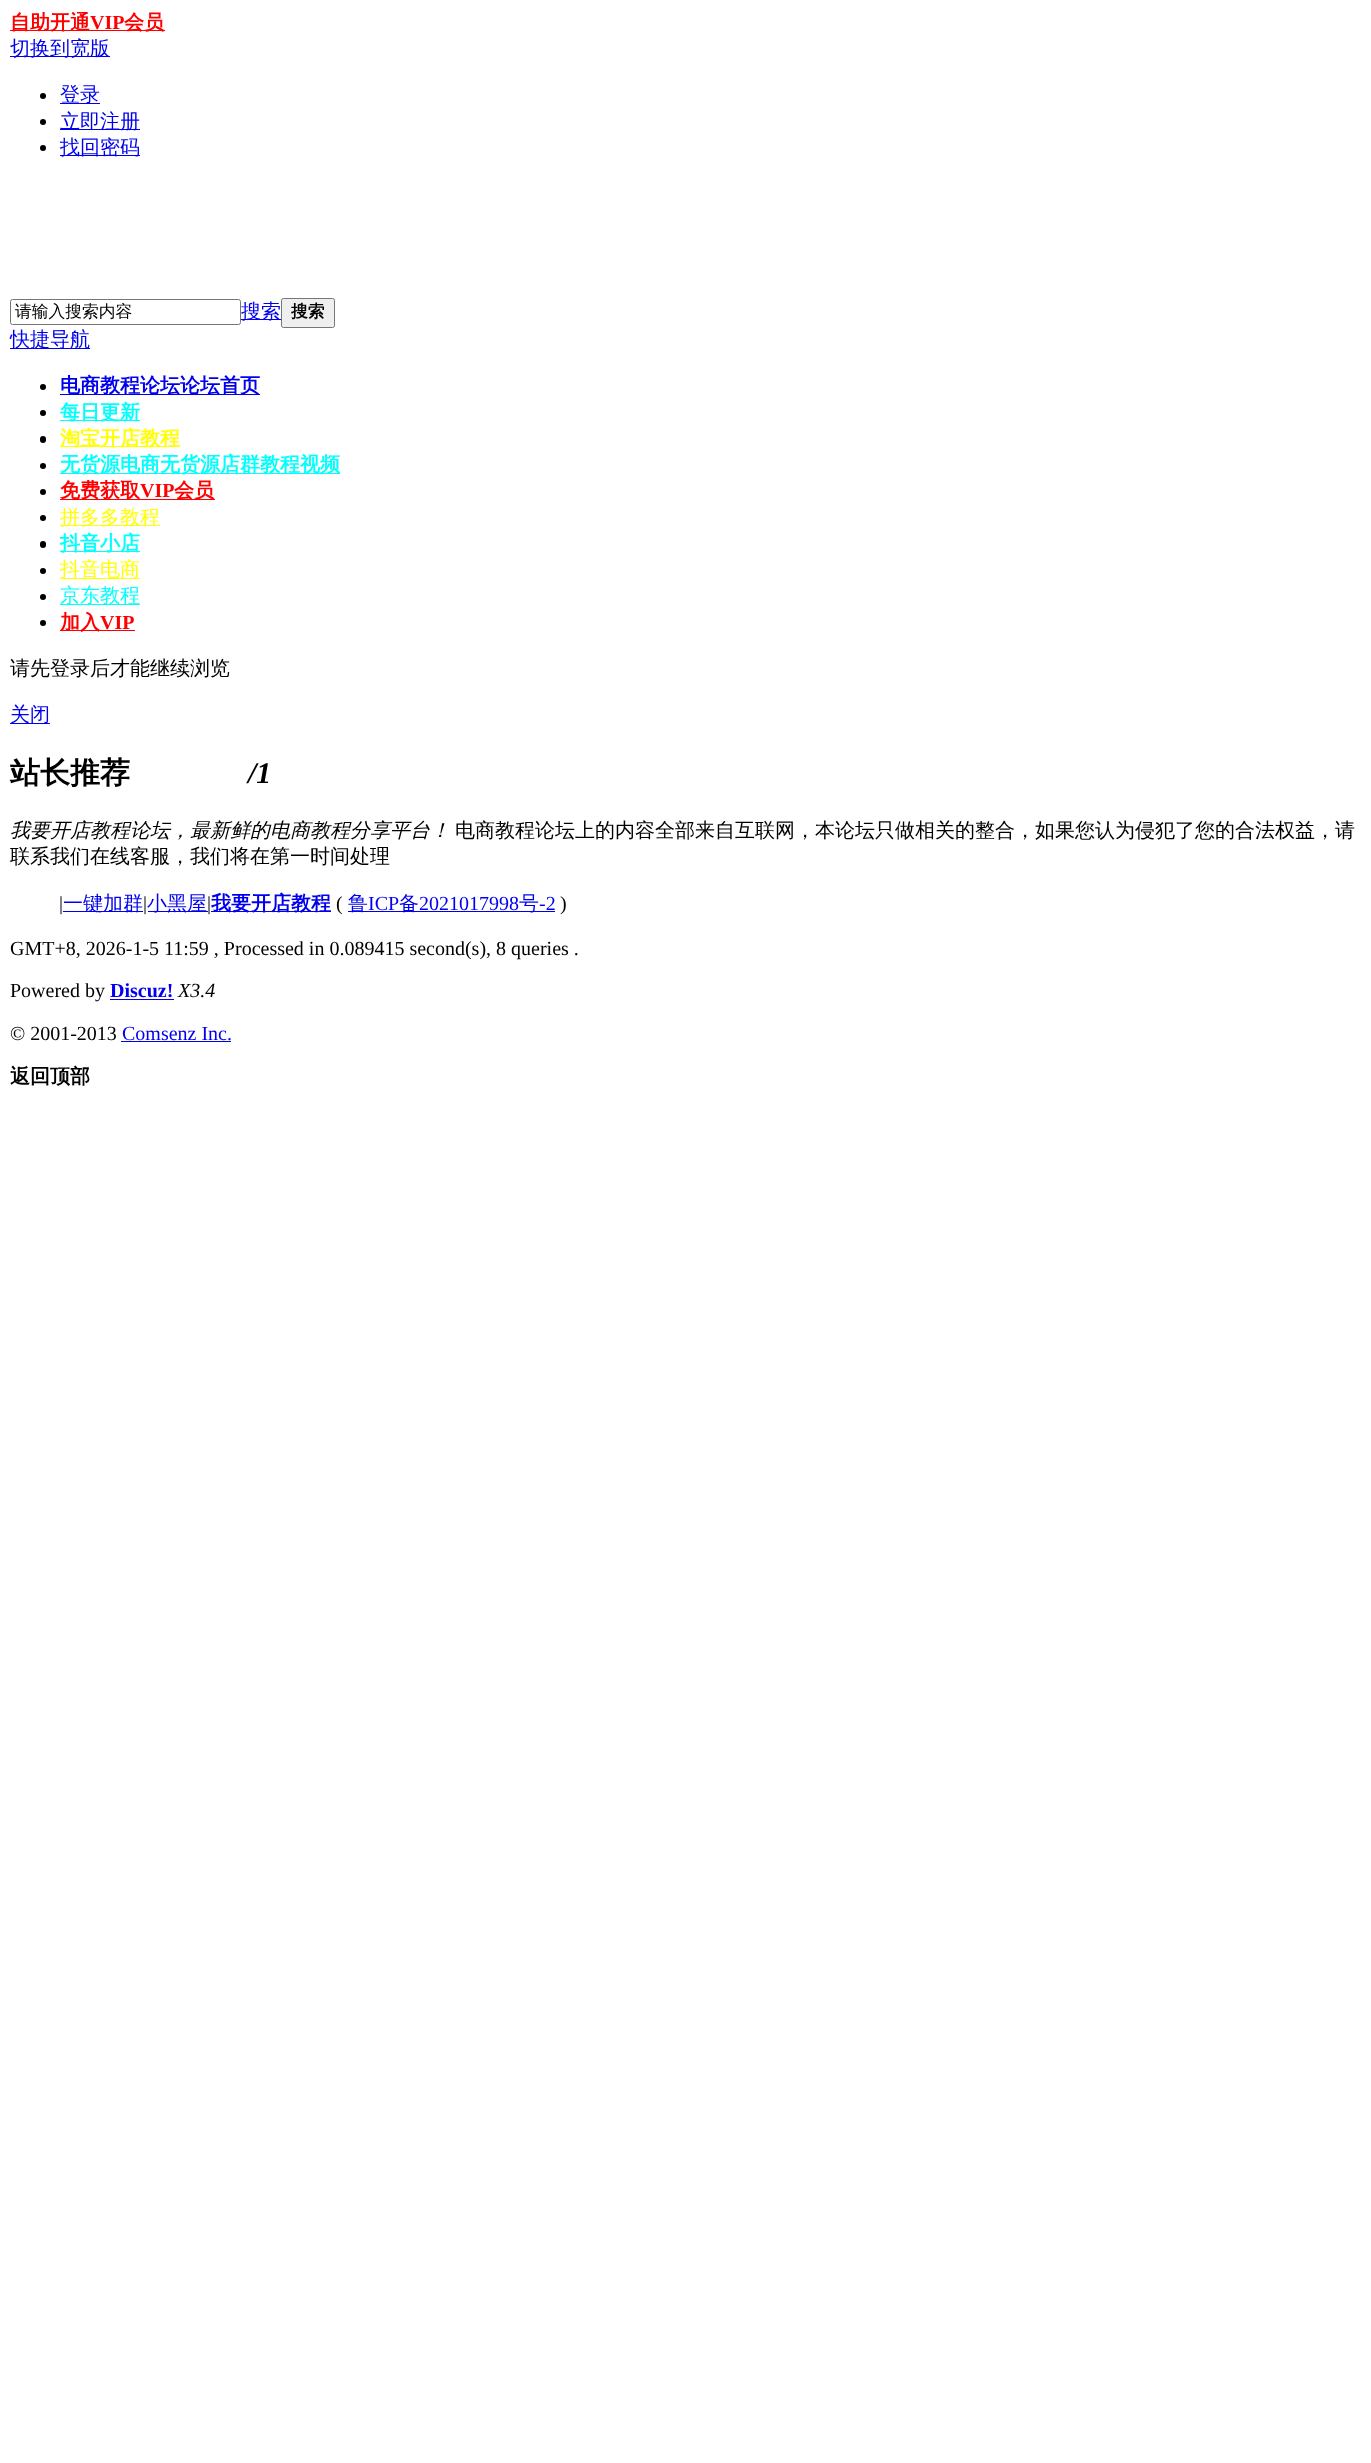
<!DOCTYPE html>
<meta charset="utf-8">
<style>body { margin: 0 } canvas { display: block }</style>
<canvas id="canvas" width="1371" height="2463"></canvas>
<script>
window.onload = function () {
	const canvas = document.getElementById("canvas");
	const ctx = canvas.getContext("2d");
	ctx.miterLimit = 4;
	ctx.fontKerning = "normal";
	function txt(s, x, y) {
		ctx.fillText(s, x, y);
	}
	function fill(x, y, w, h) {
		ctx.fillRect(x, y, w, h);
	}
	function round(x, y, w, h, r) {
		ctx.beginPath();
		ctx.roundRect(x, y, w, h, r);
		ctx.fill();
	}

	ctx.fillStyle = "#FFFFFF";
	fill(0, 0, 1371, 2463);
	ctx.fillStyle = "#FF0000";
	fill(10, 30, 155, 1);
	ctx.fillStyle = "#0000EE";
	fill(10, 56, 100, 1);
	ctx.fillStyle = "#000000";
	ctx.beginPath();
	ctx.arc(43, 96, 3, 0, Math.PI * 2);
	ctx.fill();
	ctx.fillStyle = "#0000EE";
	fill(60, 103, 40, 1);
	ctx.fillStyle = "#000000";
	ctx.beginPath();
	ctx.arc(43, 122, 3, 0, Math.PI * 2);
	ctx.fill();
	ctx.fillStyle = "#0000EE";
	fill(60, 129, 80, 1);
	ctx.fillStyle = "#000000";
	ctx.beginPath();
	ctx.arc(43, 148, 3, 0, Math.PI * 2);
	ctx.fill();
	ctx.fillStyle = "#0000EE";
	fill(60, 155, 80, 1);
	ctx.beginPath();
	ctx.roundRect(10.5, 299.5, 230, 25, 2);
	ctx.strokeStyle = "#767676";
	ctx.stroke();
	fill(241, 319, 40, 1);
	ctx.fillStyle = "#EFEFEF";
	ctx.beginPath();
	ctx.roundRect(281.5, 298.5, 53, 29, 2);
	ctx.fill();
	ctx.stroke();
	ctx.fillStyle = "#0000EE";
	fill(10, 348, 80, 1);
	ctx.fillStyle = "#000000";
	ctx.beginPath();
	ctx.arc(43, 387, 3, 0, Math.PI * 2);
	ctx.fill();
	ctx.fillStyle = "#0000EE";
	fill(60, 394, 200, 1);
	ctx.fillStyle = "#000000";
	ctx.beginPath();
	ctx.arc(43, 413, 3, 0, Math.PI * 2);
	ctx.fill();
	ctx.fillStyle = "#00FFFF";
	fill(60, 420, 80, 1);
	ctx.fillStyle = "#000000";
	round(40, 436, 6, 7, 3);
	ctx.fillStyle = "#FFFF00";
	fill(60, 446, 120, 1);
	ctx.fillStyle = "#000000";
	ctx.beginPath();
	ctx.arc(43, 466, 3, 0, Math.PI * 2);
	ctx.fill();
	ctx.fillStyle = "#00FFFF";
	fill(60, 473, 280, 1);
	ctx.fillStyle = "#000000";
	ctx.beginPath();
	ctx.arc(43, 492, 3, 0, Math.PI * 2);
	ctx.fill();
	ctx.fillStyle = "#FF0000";
	fill(60, 499, 155, 1);
	ctx.fillStyle = "#000000";
	ctx.beginPath();
	ctx.arc(43, 518, 3, 0, Math.PI * 2);
	ctx.fill();
	ctx.fillStyle = "#FFFF00";
	fill(60, 525, 100, 1);
	ctx.fillStyle = "#000000";
	round(40, 541, 6, 7, 3);
	ctx.fillStyle = "#00FFFF";
	fill(60, 551, 80, 1);
	ctx.fillStyle = "#000000";
	ctx.beginPath();
	ctx.arc(43, 571, 3, 0, Math.PI * 2);
	ctx.fill();
	ctx.fillStyle = "#FFFF00";
	fill(60, 578, 80, 1);
	ctx.fillStyle = "#000000";
	ctx.beginPath();
	ctx.arc(43, 597, 3, 0, Math.PI * 2);
	ctx.fill();
	ctx.fillStyle = "#00FFFF";
	fill(60, 604, 80, 1);
	ctx.fillStyle = "#000000";
	ctx.beginPath();
	ctx.arc(43, 623, 3, 0, Math.PI * 2);
	ctx.fill();
	ctx.fillStyle = "#FF0000";
	fill(60, 630, 75, 1);
	ctx.fillStyle = "#0000EE";
	fill(10, 723, 40, 1);
	fill(63, 911, 80, 1);
	fill(148, 911, 60, 1);
	fill(211, 911, 120, 1);
	fill(348, 911, 207, 1);
	fill(110, 999, 64, 1);
	fill(121, 1041, 110, 1);
	ctx.font = "bold 20px WenQuanYi Zen Hei";
	ctx.fillStyle = "#FF0000";
	txt("自助开通", 10, 29);
	ctx.font = "bold 20px Liberation Serif";
	txt("VIP", 90, 29);
	ctx.font = "bold 20px WenQuanYi Zen Hei";
	txt("会员", 124, 29);
	ctx.font = "500 20px WenQuanYi Zen Hei";
	ctx.fillStyle = "#0000EE";
	txt("切换到宽版", 10, 55);
	txt("登录", 60, 101);
	txt("立即注册", 60, 128);
	txt("找回密码", 60, 154);
	ctx.font = "500 16.75px WenQuanYi Zen Hei";
	ctx.fillStyle = "#000000";
	txt("请输入搜索内容", 15, 317);
	ctx.font = "500 20px WenQuanYi Zen Hei";
	ctx.fillStyle = "#0000EE";
	txt("搜索", 241, 318);
	ctx.font = "bold 16.75px WenQuanYi Zen Hei";
	ctx.fillStyle = "#000000";
	txt("搜索", 291, 317);
	ctx.font = "500 20px WenQuanYi Zen Hei";
	ctx.fillStyle = "#0000EE";
	txt("快捷导航", 10, 346);
	ctx.font = "bold 20px WenQuanYi Zen Hei";
	txt("电商教程论坛论坛首页", 60, 392);
	ctx.fillStyle = "#00FFFF";
	txt("每日更新", 60, 419);
	ctx.fillStyle = "#FFFF00";
	txt("淘宝开店教程", 60, 445);
	ctx.fillStyle = "#00FFFF";
	txt("无货源电商无货源店群教程视频", 60, 471);
	ctx.fillStyle = "#FF0000";
	txt("免费获取", 60, 497);
	ctx.font = "bold 20px Liberation Serif";
	txt("VIP", 140, 497);
	ctx.font = "bold 20px WenQuanYi Zen Hei";
	txt("会员", 174, 497);
	ctx.font = "500 20px WenQuanYi Zen Hei";
	ctx.fillStyle = "#FFFF00";
	txt("拼多多教程", 60, 524);
	ctx.font = "bold 20px WenQuanYi Zen Hei";
	ctx.fillStyle = "#00FFFF";
	txt("抖音小店", 60, 550);
	ctx.font = "500 20px WenQuanYi Zen Hei";
	ctx.fillStyle = "#FFFF00";
	txt("抖音电商", 60, 576);
	ctx.fillStyle = "#00FFFF";
	txt("京东教程", 60, 602);
	ctx.font = "bold 20px WenQuanYi Zen Hei";
	ctx.fillStyle = "#FF0000";
	txt("加入", 60, 629);
	ctx.font = "bold 20px Liberation Serif";
	txt("VIP", 100, 629);
	ctx.font = "500 20px WenQuanYi Zen Hei";
	ctx.fillStyle = "#000000";
	txt("请先登录后才能继续浏览", 10, 675);
	ctx.fillStyle = "#0000EE";
	txt("关闭", 10, 721);
	ctx.font = "bold 30px WenQuanYi Zen Hei";
	ctx.fillStyle = "#000000";
	txt("站长推荐", 10, 783);
	ctx.font = "italic bold 30px Liberation Serif";
	txt("/1", 248, 783);
	ctx.font = "italic 500 20px WenQuanYi Zen Hei";
	txt("我要开店教程论坛，最新鲜的电商教程分享平台！", 10, 837);
	ctx.font = "500 20px WenQuanYi Zen Hei";
	txt("电商教程论坛上的内容全部来自互联网，本论坛只做相关的整合，如果您认为侵犯了您的合法权益，请", 455, 837);
	txt("联系我们在线客服，我们将在第一时间处理", 10, 863);
	ctx.font = "20px Liberation Serif";
	txt("|", 59, 910);
	ctx.font = "500 20px WenQuanYi Zen Hei";
	ctx.fillStyle = "#0000EE";
	txt("一键加群", 63, 910);
	ctx.font = "20px Liberation Serif";
	ctx.fillStyle = "#000000";
	txt("|", 143, 910);
	ctx.font = "500 20px WenQuanYi Zen Hei";
	ctx.fillStyle = "#0000EE";
	txt("小黑屋", 147, 910);
	ctx.font = "20px Liberation Serif";
	ctx.fillStyle = "#000000";
	txt("|", 207, 910);
	ctx.font = "bold 20px WenQuanYi Zen Hei";
	ctx.fillStyle = "#0000EE";
	txt("我要开店教程", 211, 910);
	ctx.font = "20px Liberation Serif";
	ctx.fillStyle = "#000000";
	txt("(", 336, 910);
	ctx.font = "500 20px WenQuanYi Zen Hei";
	ctx.fillStyle = "#0000EE";
	txt("鲁", 348, 910);
	ctx.font = "20px Liberation Serif";
	txt("ICP", 368, 910);
	ctx.font = "500 20px WenQuanYi Zen Hei";
	txt("备", 399, 910);
	ctx.font = "20px Liberation Serif";
	txt("2021017998", 419, 910);
	ctx.font = "500 20px WenQuanYi Zen Hei";
	txt("号", 519, 910);
	ctx.font = "20px Liberation Serif";
	txt("-2", 539, 910);
	ctx.fillStyle = "#000000";
	txt(")", 560, 910);
	txt("GMT+8, 2026-1-5 11:59 , Processed in 0.089415 second(s), 8 queries .", 10, 955);
	txt("Powered by", 10, 997);
	ctx.font = "bold 20px Liberation Serif";
	ctx.fillStyle = "#0000EE";
	txt("Discuz!", 110, 997);
	ctx.font = "italic 20px Liberation Serif";
	ctx.fillStyle = "#000000";
	txt("X3.4", 178, 997);
	ctx.font = "20px Liberation Serif";
	txt("© 2001-2013", 10, 1040);
	ctx.fillStyle = "#0000EE";
	txt("Comsenz Inc.", 122, 1040);
	ctx.font = "bold 20px WenQuanYi Zen Hei";
	ctx.fillStyle = "#000000";
	txt("返回顶部", 10, 1083);
};
</script>
